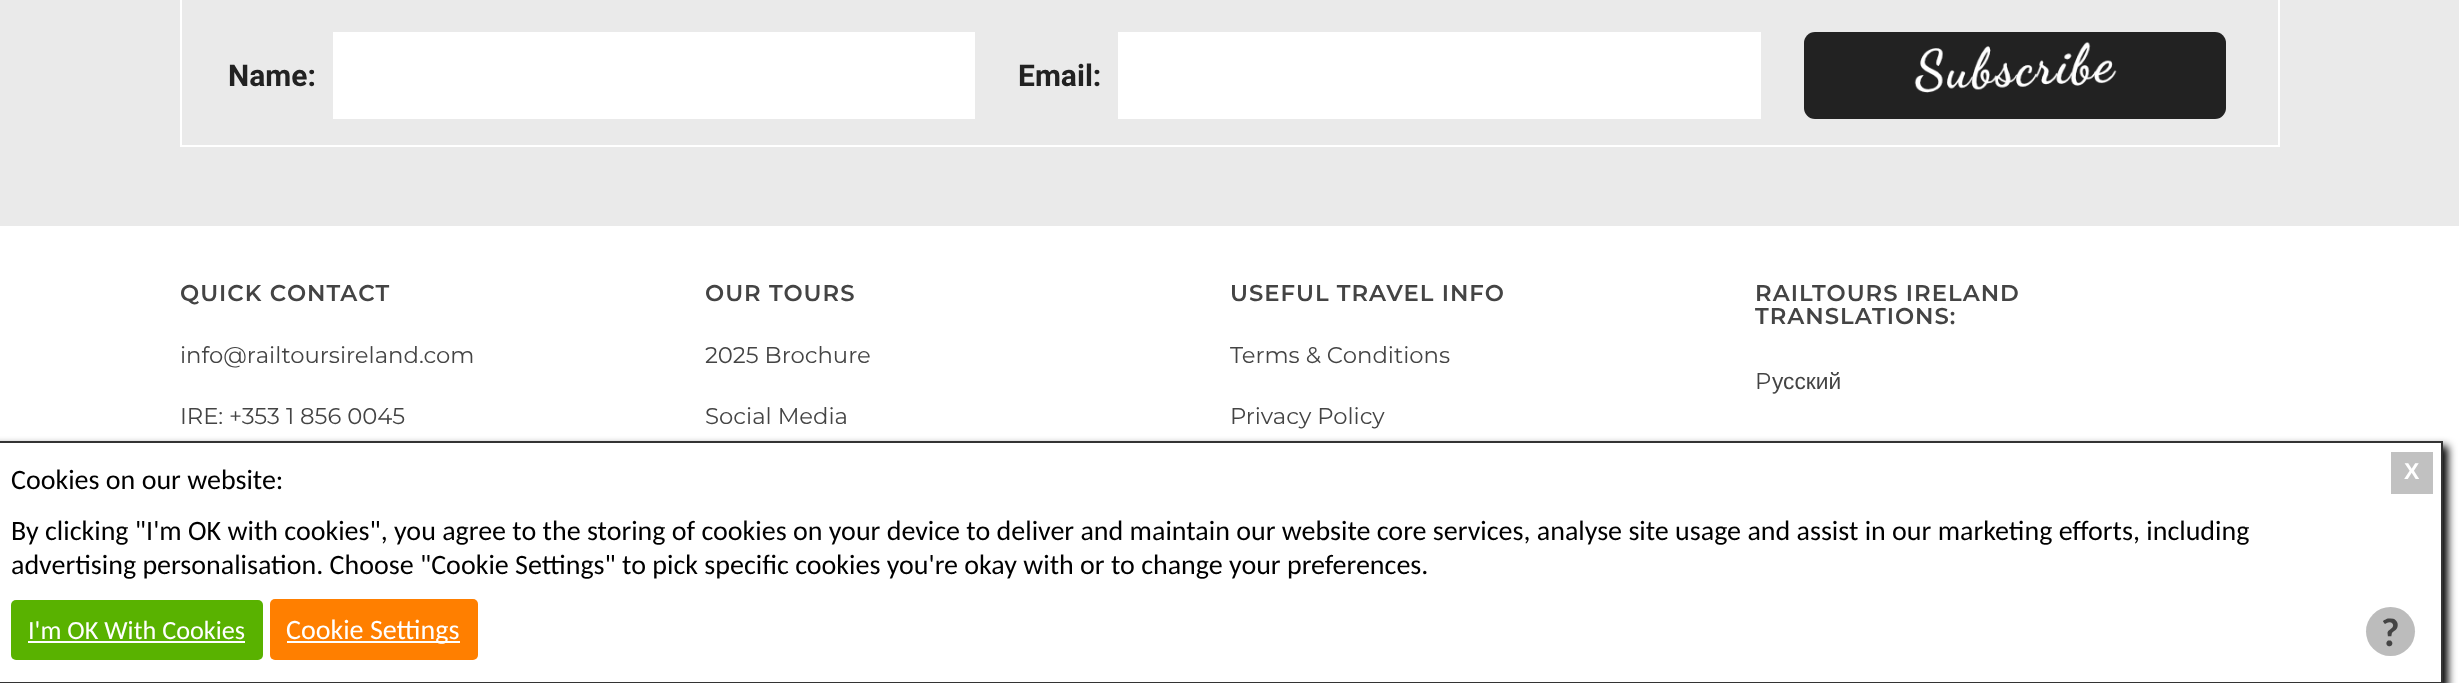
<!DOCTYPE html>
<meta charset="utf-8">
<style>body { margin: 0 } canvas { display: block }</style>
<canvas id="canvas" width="2459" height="683"></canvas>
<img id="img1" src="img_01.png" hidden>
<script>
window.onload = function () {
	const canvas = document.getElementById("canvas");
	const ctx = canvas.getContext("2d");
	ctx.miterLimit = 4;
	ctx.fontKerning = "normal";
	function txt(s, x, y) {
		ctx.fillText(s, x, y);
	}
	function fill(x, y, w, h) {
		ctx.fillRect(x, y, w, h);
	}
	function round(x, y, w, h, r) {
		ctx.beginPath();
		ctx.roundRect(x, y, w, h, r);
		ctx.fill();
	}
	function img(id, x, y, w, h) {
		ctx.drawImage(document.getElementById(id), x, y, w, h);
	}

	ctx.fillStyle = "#FFFFFF";
	fill(0, 0, 2459, 683);
	ctx.fillStyle = "#EAEAEA";
	fill(0, 0, 2459, 226);
	ctx.strokeStyle = "#FFFFFF";
	ctx.lineWidth = 2;
	ctx.strokeRect(181, -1, 2098, 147);
	ctx.fillStyle = "#FFFFFF";
	fill(333, 32, 642, 87);
	fill(1118, 32, 643, 87);
	ctx.fillStyle = "#222222";
	round(1804, 32, 422, 87, 11);
	img("img1", 1914, 41, 203, 52);
	ctx.fillStyle = "#000000";
	ctx.filter = "blur(4.5px)";
	ctx.beginPath();
	ctx.rect(-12, 446, 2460, 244);
	ctx.fill();
	ctx.filter = "none";
	ctx.fillStyle = "#FFFFFF";
	ctx.beginPath();
	ctx.rect(-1, 442, 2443, 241);
	ctx.fill();
	ctx.strokeStyle = "#333333";
	ctx.stroke();
	ctx.fillStyle = "#C1C1C1";
	fill(2391, 452, 42, 42);
	ctx.fillStyle = "#59B200";
	round(11, 600, 252, 60, 5);
	ctx.fillStyle = "#FFFFFF";
	fill(28, 641, 217, 2);
	ctx.fillStyle = "#FF7F00";
	round(270, 599, 208, 61, 5);
	ctx.fillStyle = "#FFFFFF";
	fill(287, 641, 173, 2);
	ctx.fillStyle = "#BCBCBC";
	ctx.beginPath();
	ctx.arc(2390.5, 631.5, 24.5, 0, Math.PI * 2);
	ctx.fill();
	ctx.font = "bold 30px Roboto";
	ctx.fillStyle = "#222222";
	txt("Name:", 228, 86);
	txt("Email:", 1018, 86);
	ctx.letterSpacing = "1px";
	ctx.font = "600 22.75px Montserrat";
	ctx.fillStyle = "#444444";
	txt("QUICK CONTACT", 180, 301);
	ctx.letterSpacing = "0px";
	ctx.font = "22.75px Montserrat";
	txt("info@railtoursireland.com", 180, 363);
	txt("IRE: +353 1 856 0045", 180, 424);
	ctx.letterSpacing = "1px";
	ctx.font = "600 22.75px Montserrat";
	txt("OUR TOURS", 705, 301);
	ctx.letterSpacing = "0px";
	ctx.font = "22.75px Montserrat";
	txt("2025 Brochure", 705, 363);
	txt("Social Media", 705, 424);
	ctx.letterSpacing = "1px";
	ctx.font = "600 22.75px Montserrat";
	txt("USEFUL TRAVEL INFO", 1230, 301);
	ctx.letterSpacing = "0px";
	ctx.font = "22.75px Montserrat";
	txt("Terms & Conditions", 1230, 363);
	txt("Privacy Policy", 1230, 424);
	ctx.letterSpacing = "1px";
	ctx.font = "600 22.75px Montserrat";
	txt("RAILTOURS IRELAND", 1755, 301);
	txt("TRANSLATIONS:", 1755, 324);
	ctx.letterSpacing = "0px";
	ctx.font = "22.75px Montserrat";
	txt("P", 1755, 389);
	ctx.font = "22.75px Liberation Sans";
	txt("усский", 1772, 389);
	ctx.font = "28px Carlito";
	ctx.fillStyle = "#000000";
	txt("Cookies on our website:", 11, 489);
	ctx.font = "bold 23px Liberation Sans";
	ctx.fillStyle = "#FFFFFF";
	txt("X", 2404, 479);
	ctx.font = "28px Carlito";
	ctx.fillStyle = "#000000";
	txt("By clicking \"I'm OK with cookies\", you agree to the storing of cookies on your device to deliver and maintain our website core services, analyse site usage and assist in our marketing efforts, including", 11, 540);
	txt("advertising personalisation. Choose \"Cookie Settings\" to pick specific cookies you're okay with or to change your preferences.", 11, 574);
	ctx.font = "26.25px Carlito";
	ctx.fillStyle = "#FFFFFF";
	txt("I'm OK With Cookies", 28, 639);
	ctx.font = "28px Carlito";
	txt("Cookie Settings", 286, 639);
	ctx.font = "bold 40px Carlito";
	ctx.fillStyle = "#444444";
	txt("?", 2381, 646);
};
</script>
